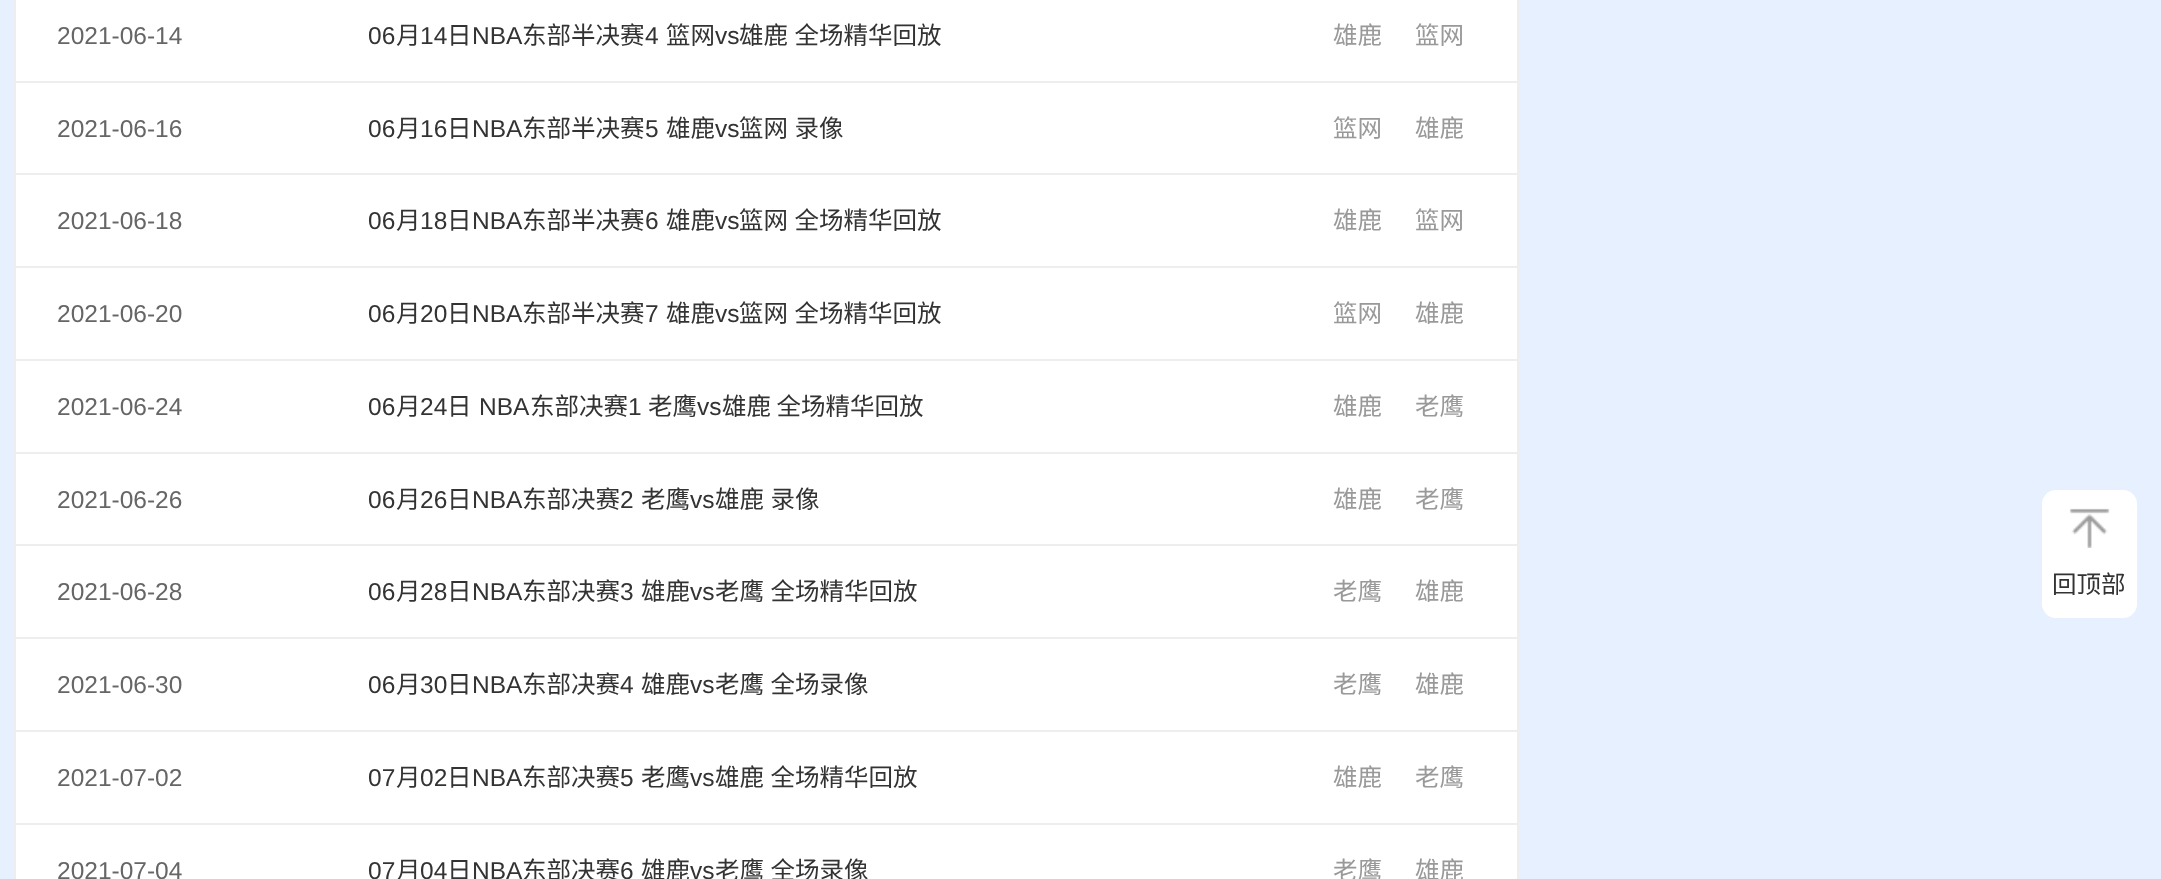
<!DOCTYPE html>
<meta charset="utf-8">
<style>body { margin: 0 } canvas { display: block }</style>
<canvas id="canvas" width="2161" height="879"></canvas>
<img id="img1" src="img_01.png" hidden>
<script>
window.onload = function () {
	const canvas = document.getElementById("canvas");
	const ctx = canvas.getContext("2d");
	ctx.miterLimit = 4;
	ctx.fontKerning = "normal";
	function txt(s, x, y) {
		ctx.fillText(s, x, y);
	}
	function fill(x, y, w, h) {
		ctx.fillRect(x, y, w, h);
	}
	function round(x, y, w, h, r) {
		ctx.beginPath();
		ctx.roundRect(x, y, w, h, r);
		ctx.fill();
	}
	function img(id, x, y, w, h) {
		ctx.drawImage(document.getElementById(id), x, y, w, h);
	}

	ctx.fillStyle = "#E7F0FE";
	fill(0, 0, 2161, 879);
	ctx.fillStyle = "#FFFFFF";
	fill(16, 0, 1501, 879);
	ctx.fillStyle = "#EEEEEE";
	fill(1517, 0, 2, 879);
	fill(14, 0, 2, 879);
	fill(16, 81, 1501, 2);
	fill(16, 173, 1501, 2);
	fill(16, 266, 1501, 2);
	fill(16, 359, 1501, 2);
	fill(16, 452, 1501, 2);
	fill(16, 544, 1501, 2);
	fill(16, 637, 1501, 2);
	fill(16, 730, 1501, 2);
	fill(16, 823, 1501, 2);
	ctx.fillStyle = "#FFFFFF";
	round(2042, 490, 95, 128, 14);
	img("img1", 2069, 508, 41, 40);
	ctx.font = "24.5px Liberation Sans";
	ctx.fillStyle = "#666666";
	txt("2021-06-14", 57, 44);
	ctx.fillStyle = "#333333";
	txt("06", 368, 44);
	ctx.font = "24.5px Noto Sans CJK SC";
	txt("月", 396, 44);
	ctx.font = "24.5px Liberation Sans";
	txt("14", 420, 44);
	ctx.font = "24.5px Noto Sans CJK SC";
	txt("日", 447, 44);
	ctx.font = "24.5px Liberation Sans";
	txt("NBA", 472, 44);
	ctx.font = "24.5px Noto Sans CJK SC";
	txt("东部半决赛", 522, 44);
	ctx.font = "24.5px Liberation Sans";
	txt("4", 645, 44);
	ctx.font = "24.5px Noto Sans CJK SC";
	txt("篮网", 666, 44);
	ctx.font = "24.5px Liberation Sans";
	txt("vs", 715, 44);
	ctx.wordSpacing = "1px";
	ctx.font = "24.5px Noto Sans CJK SC";
	txt("雄鹿 全场精华回放", 739, 44);
	ctx.wordSpacing = "0px";
	ctx.fillStyle = "#999999";
	txt("雄鹿", 1333, 44);
	txt("篮网", 1415, 44);
	ctx.font = "24.5px Liberation Sans";
	ctx.fillStyle = "#666666";
	txt("2021-06-16", 57, 137);
	ctx.fillStyle = "#333333";
	txt("06", 368, 137);
	ctx.font = "24.5px Noto Sans CJK SC";
	txt("月", 396, 137);
	ctx.font = "24.5px Liberation Sans";
	txt("16", 420, 137);
	ctx.font = "24.5px Noto Sans CJK SC";
	txt("日", 447, 137);
	ctx.font = "24.5px Liberation Sans";
	txt("NBA", 472, 137);
	ctx.font = "24.5px Noto Sans CJK SC";
	txt("东部半决赛", 522, 137);
	ctx.font = "24.5px Liberation Sans";
	txt("5", 645, 137);
	ctx.font = "24.5px Noto Sans CJK SC";
	txt("雄鹿", 666, 137);
	ctx.font = "24.5px Liberation Sans";
	txt("vs", 715, 137);
	ctx.wordSpacing = "1px";
	ctx.font = "24.5px Noto Sans CJK SC";
	txt("篮网 录像", 739, 137);
	ctx.wordSpacing = "0px";
	ctx.fillStyle = "#999999";
	txt("篮网", 1333, 137);
	txt("雄鹿", 1415, 137);
	ctx.font = "24.5px Liberation Sans";
	ctx.fillStyle = "#666666";
	txt("2021-06-18", 57, 229);
	ctx.fillStyle = "#333333";
	txt("06", 368, 229);
	ctx.font = "24.5px Noto Sans CJK SC";
	txt("月", 396, 229);
	ctx.font = "24.5px Liberation Sans";
	txt("18", 420, 229);
	ctx.font = "24.5px Noto Sans CJK SC";
	txt("日", 447, 229);
	ctx.font = "24.5px Liberation Sans";
	txt("NBA", 472, 229);
	ctx.font = "24.5px Noto Sans CJK SC";
	txt("东部半决赛", 522, 229);
	ctx.font = "24.5px Liberation Sans";
	txt("6", 645, 229);
	ctx.font = "24.5px Noto Sans CJK SC";
	txt("雄鹿", 666, 229);
	ctx.font = "24.5px Liberation Sans";
	txt("vs", 715, 229);
	ctx.wordSpacing = "1px";
	ctx.font = "24.5px Noto Sans CJK SC";
	txt("篮网 全场精华回放", 739, 229);
	ctx.wordSpacing = "0px";
	ctx.fillStyle = "#999999";
	txt("雄鹿", 1333, 229);
	txt("篮网", 1415, 229);
	ctx.font = "24.5px Liberation Sans";
	ctx.fillStyle = "#666666";
	txt("2021-06-20", 57, 322);
	ctx.fillStyle = "#333333";
	txt("06", 368, 322);
	ctx.font = "24.5px Noto Sans CJK SC";
	txt("月", 396, 322);
	ctx.font = "24.5px Liberation Sans";
	txt("20", 420, 322);
	ctx.font = "24.5px Noto Sans CJK SC";
	txt("日", 447, 322);
	ctx.font = "24.5px Liberation Sans";
	txt("NBA", 472, 322);
	ctx.font = "24.5px Noto Sans CJK SC";
	txt("东部半决赛", 522, 322);
	ctx.font = "24.5px Liberation Sans";
	txt("7", 645, 322);
	ctx.font = "24.5px Noto Sans CJK SC";
	txt("雄鹿", 666, 322);
	ctx.font = "24.5px Liberation Sans";
	txt("vs", 715, 322);
	ctx.wordSpacing = "1px";
	ctx.font = "24.5px Noto Sans CJK SC";
	txt("篮网 全场精华回放", 739, 322);
	ctx.wordSpacing = "0px";
	ctx.fillStyle = "#999999";
	txt("篮网", 1333, 322);
	txt("雄鹿", 1415, 322);
	ctx.font = "24.5px Liberation Sans";
	ctx.fillStyle = "#666666";
	txt("2021-06-24", 57, 415);
	ctx.fillStyle = "#333333";
	txt("06", 368, 415);
	ctx.font = "24.5px Noto Sans CJK SC";
	txt("月", 396, 415);
	ctx.font = "24.5px Liberation Sans";
	txt("24", 420, 415);
	ctx.font = "24.5px Noto Sans CJK SC";
	txt("日", 447, 415);
	ctx.font = "24.5px Liberation Sans";
	txt("NBA", 479, 415);
	ctx.font = "24.5px Noto Sans CJK SC";
	txt("东部决赛", 530, 415);
	ctx.font = "24.5px Liberation Sans";
	txt("1", 628, 415);
	ctx.font = "24.5px Noto Sans CJK SC";
	txt("老鹰", 648, 415);
	ctx.font = "24.5px Liberation Sans";
	txt("vs", 697, 415);
	ctx.font = "24.5px Noto Sans CJK SC";
	txt("雄鹿 全场精华回放", 722, 415);
	ctx.fillStyle = "#999999";
	txt("雄鹿", 1333, 415);
	txt("老鹰", 1415, 415);
	ctx.font = "24.5px Liberation Sans";
	ctx.fillStyle = "#666666";
	txt("2021-06-26", 57, 508);
	ctx.fillStyle = "#333333";
	txt("06", 368, 508);
	ctx.font = "24.5px Noto Sans CJK SC";
	txt("月", 396, 508);
	ctx.font = "24.5px Liberation Sans";
	txt("26", 420, 508);
	ctx.font = "24.5px Noto Sans CJK SC";
	txt("日", 447, 508);
	ctx.font = "24.5px Liberation Sans";
	txt("NBA", 472, 508);
	ctx.font = "24.5px Noto Sans CJK SC";
	txt("东部决赛", 522, 508);
	ctx.font = "24.5px Liberation Sans";
	txt("2", 620, 508);
	ctx.font = "24.5px Noto Sans CJK SC";
	txt("老鹰", 641, 508);
	ctx.font = "24.5px Liberation Sans";
	txt("vs", 690, 508);
	ctx.wordSpacing = "1px";
	ctx.font = "24.5px Noto Sans CJK SC";
	txt("雄鹿 录像", 715, 508);
	ctx.wordSpacing = "0px";
	ctx.fillStyle = "#999999";
	txt("雄鹿", 1333, 508);
	txt("老鹰", 1415, 508);
	ctx.font = "24.5px Liberation Sans";
	ctx.fillStyle = "#666666";
	txt("2021-06-28", 57, 600);
	ctx.fillStyle = "#333333";
	txt("06", 368, 600);
	ctx.font = "24.5px Noto Sans CJK SC";
	txt("月", 396, 600);
	ctx.font = "24.5px Liberation Sans";
	txt("28", 420, 600);
	ctx.font = "24.5px Noto Sans CJK SC";
	txt("日", 447, 600);
	ctx.font = "24.5px Liberation Sans";
	txt("NBA", 472, 600);
	ctx.font = "24.5px Noto Sans CJK SC";
	txt("东部决赛", 522, 600);
	ctx.font = "24.5px Liberation Sans";
	txt("3", 620, 600);
	ctx.font = "24.5px Noto Sans CJK SC";
	txt("雄鹿", 641, 600);
	ctx.font = "24.5px Liberation Sans";
	txt("vs", 690, 600);
	ctx.wordSpacing = "1px";
	ctx.font = "24.5px Noto Sans CJK SC";
	txt("老鹰 全场精华回放", 715, 600);
	ctx.wordSpacing = "0px";
	ctx.fillStyle = "#999999";
	txt("老鹰", 1333, 600);
	txt("雄鹿", 1415, 600);
	ctx.font = "24.5px Liberation Sans";
	ctx.fillStyle = "#666666";
	txt("2021-06-30", 57, 693);
	ctx.fillStyle = "#333333";
	txt("06", 368, 693);
	ctx.font = "24.5px Noto Sans CJK SC";
	txt("月", 396, 693);
	ctx.font = "24.5px Liberation Sans";
	txt("30", 420, 693);
	ctx.font = "24.5px Noto Sans CJK SC";
	txt("日", 447, 693);
	ctx.font = "24.5px Liberation Sans";
	txt("NBA", 472, 693);
	ctx.font = "24.5px Noto Sans CJK SC";
	txt("东部决赛", 522, 693);
	ctx.font = "24.5px Liberation Sans";
	txt("4", 620, 693);
	ctx.font = "24.5px Noto Sans CJK SC";
	txt("雄鹿", 641, 693);
	ctx.font = "24.5px Liberation Sans";
	txt("vs", 690, 693);
	ctx.wordSpacing = "1px";
	ctx.font = "24.5px Noto Sans CJK SC";
	txt("老鹰 全场录像", 715, 693);
	ctx.wordSpacing = "0px";
	ctx.fillStyle = "#999999";
	txt("老鹰", 1333, 693);
	txt("雄鹿", 1415, 693);
	ctx.font = "24.5px Liberation Sans";
	ctx.fillStyle = "#666666";
	txt("2021-07-02", 57, 786);
	ctx.fillStyle = "#333333";
	txt("07", 368, 786);
	ctx.font = "24.5px Noto Sans CJK SC";
	txt("月", 396, 786);
	ctx.font = "24.5px Liberation Sans";
	txt("02", 420, 786);
	ctx.font = "24.5px Noto Sans CJK SC";
	txt("日", 447, 786);
	ctx.font = "24.5px Liberation Sans";
	txt("NBA", 472, 786);
	ctx.font = "24.5px Noto Sans CJK SC";
	txt("东部决赛", 522, 786);
	ctx.font = "24.5px Liberation Sans";
	txt("5", 620, 786);
	ctx.font = "24.5px Noto Sans CJK SC";
	txt("老鹰", 641, 786);
	ctx.font = "24.5px Liberation Sans";
	txt("vs", 690, 786);
	ctx.wordSpacing = "1px";
	ctx.font = "24.5px Noto Sans CJK SC";
	txt("雄鹿 全场精华回放", 715, 786);
	ctx.wordSpacing = "0px";
	ctx.fillStyle = "#999999";
	txt("雄鹿", 1333, 786);
	txt("老鹰", 1415, 786);
	ctx.font = "24.5px Liberation Sans";
	ctx.fillStyle = "#666666";
	txt("2021-07-04", 57, 879);
	ctx.fillStyle = "#333333";
	txt("07", 368, 879);
	ctx.font = "24.5px Noto Sans CJK SC";
	txt("月", 396, 879);
	ctx.font = "24.5px Liberation Sans";
	txt("04", 420, 879);
	ctx.font = "24.5px Noto Sans CJK SC";
	txt("日", 447, 879);
	ctx.font = "24.5px Liberation Sans";
	txt("NBA", 472, 879);
	ctx.font = "24.5px Noto Sans CJK SC";
	txt("东部决赛", 522, 879);
	ctx.font = "24.5px Liberation Sans";
	txt("6", 620, 879);
	ctx.font = "24.5px Noto Sans CJK SC";
	txt("雄鹿", 641, 879);
	ctx.font = "24.5px Liberation Sans";
	txt("vs", 690, 879);
	ctx.wordSpacing = "1px";
	ctx.font = "24.5px Noto Sans CJK SC";
	txt("老鹰 全场录像", 715, 879);
	ctx.wordSpacing = "0px";
	ctx.fillStyle = "#999999";
	txt("老鹰", 1333, 879);
	txt("雄鹿", 1415, 879);
	ctx.fillStyle = "#333333";
	txt("回顶部", 2052, 593);
};
</script>
